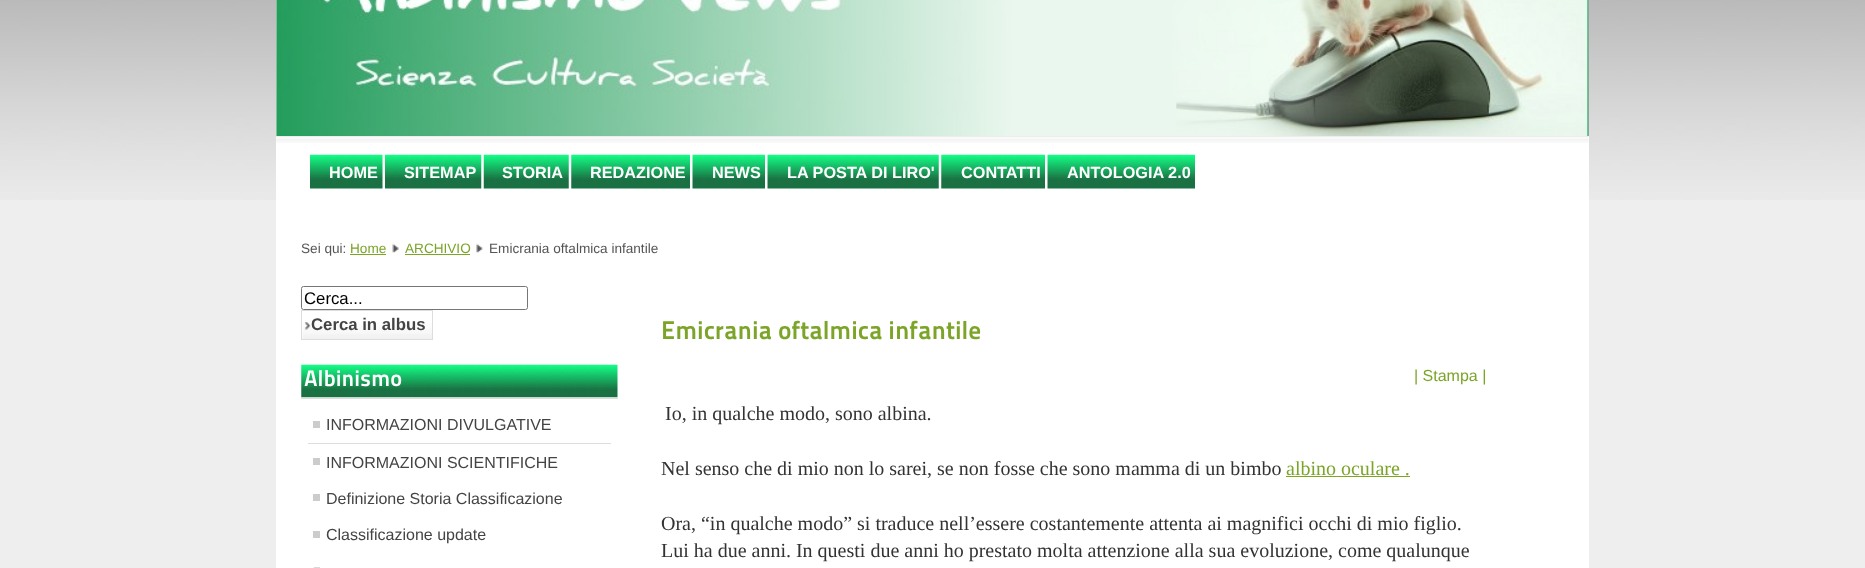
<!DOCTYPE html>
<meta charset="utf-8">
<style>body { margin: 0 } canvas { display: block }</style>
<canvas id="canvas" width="1865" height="568"></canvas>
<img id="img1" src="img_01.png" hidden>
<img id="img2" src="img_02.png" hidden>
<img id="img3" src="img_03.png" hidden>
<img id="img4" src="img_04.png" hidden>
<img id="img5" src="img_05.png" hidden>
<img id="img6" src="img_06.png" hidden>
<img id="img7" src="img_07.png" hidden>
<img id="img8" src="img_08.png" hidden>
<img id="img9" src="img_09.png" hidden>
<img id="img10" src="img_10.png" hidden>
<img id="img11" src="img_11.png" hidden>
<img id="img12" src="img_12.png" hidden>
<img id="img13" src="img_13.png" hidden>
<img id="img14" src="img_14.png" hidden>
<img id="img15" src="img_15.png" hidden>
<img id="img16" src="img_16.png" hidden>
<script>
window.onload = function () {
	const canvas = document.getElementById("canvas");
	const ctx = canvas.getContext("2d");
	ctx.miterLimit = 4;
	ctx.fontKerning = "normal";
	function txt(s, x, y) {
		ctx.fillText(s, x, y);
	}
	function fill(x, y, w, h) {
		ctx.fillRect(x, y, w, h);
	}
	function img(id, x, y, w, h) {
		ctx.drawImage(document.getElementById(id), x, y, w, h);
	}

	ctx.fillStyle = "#EEEEEE";
	fill(0, 0, 1865, 568);
	img("img1", 0, 0, 1865, 200);
	fill(276, 0, 1313, 136);
	img("img2", 276, 0, 1313, 136);
	ctx.fillStyle = "#FFFFFF";
	fill(276, 136, 1313, 432);
	img("img3", 276, 136, 1313, 7);
	ctx.fillStyle = "#DDDDDD";
	fill(382, 186, 1, 1);
	img("img4", 310, 154, 73, 35);
	img("img5", 385, 154, 97, 35);
	img("img6", 483, 154, 86, 35);
	img("img7", 571, 154, 119, 35);
	img("img8", 692, 154, 73, 35);
	img("img9", 767, 154, 172, 35);
	img("img10", 941, 154, 104, 35);
	img("img11", 1047, 154, 148, 35);
	ctx.fillStyle = "#7BA428";
	fill(350, 254, 36, 1);
	img("img12", 392, 243, 7, 10);
	fill(405, 254, 65, 1);
	img("img13", 476, 243, 7, 10);
	ctx.beginPath();
	ctx.roundRect(301.5, 286.5, 226, 23, 2);
	ctx.strokeStyle = "#767676";
	ctx.stroke();
	img("img14", 302, 322, 130, 17);
	ctx.strokeStyle = "#DDDDDD";
	ctx.strokeRect(301.5, 310.5, 131, 29);
	ctx.fillStyle = "#DDDDDD";
	fill(301, 398, 317, 1);
	img("img15", 301, 364, 317, 34);
	fill(308, 443, 303, 1);
	ctx.fillStyle = "#CCCCCC";
	fill(313, 421, 7, 7);
	fill(313, 458, 7, 7);
	fill(313, 494, 7, 7);
	fill(313, 531, 7, 7);
	img("img16", 313, 567, 7, 1);
	ctx.fillStyle = "#7BA428";
	fill(1286, 476, 124, 1);
	ctx.font = "bold 16.25px Liberation Sans";
	ctx.fillStyle = "#FFFFFF";
	txt("HOME", 329, 178);
	txt("SITEMAP", 404, 178);
	txt("STORIA", 502, 178);
	txt("REDAZIONE", 590, 178);
	txt("NEWS", 712, 178);
	txt("LA POSTA DI LIRO'", 787, 178);
	txt("CONTATTI", 961, 178);
	txt("ANTOLOGIA 2.0", 1067, 178);
	ctx.font = "13.6px Liberation Sans";
	ctx.fillStyle = "#555555";
	txt("Sei qui:", 301, 253);
	ctx.fillStyle = "#7BA428";
	txt("Home", 350, 253);
	txt("ARCHIVIO", 405, 253);
	ctx.fillStyle = "#555555";
	txt("Emicrania oftalmica infantile", 489, 253);
	ctx.font = "16.75px Liberation Sans";
	ctx.fillStyle = "#000000";
	txt("Cerca...", 304, 304);
	ctx.font = "bold 16.75px Liberation Sans";
	ctx.fillStyle = "#444444";
	txt("Cerca in albus", 311, 330);
	ctx.font = "800 22.5px 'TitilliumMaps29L'";
	ctx.fillStyle = "#FFFFFF";
	txt("Albinismo", 304, 386);
	ctx.font = "16px Liberation Sans";
	ctx.fillStyle = "#444444";
	txt("INFORMAZIONI DIVULGATIVE", 326, 430);
	txt("INFORMAZIONI SCIENTIFICHE", 326, 468);
	txt("Definizione Storia Classificazione", 326, 504);
	txt("Classificazione update", 326, 540);
	ctx.font = "800 25.6px 'TitilliumMaps29L'";
	ctx.fillStyle = "#7BA428";
	txt("Emicrania oftalmica infantile", 661, 339);
	ctx.font = "16px Liberation Sans";
	txt("| Stampa |", 1414, 381);
	ctx.font = "20px Liberation Serif";
	ctx.fillStyle = "#333333";
	txt("Io, in qualche modo, sono albina.", 665, 420);
	txt("Nel senso che di mio non lo sarei, se non fosse che sono mamma di un bimbo", 661, 475);
	ctx.fillStyle = "#7BA428";
	txt("albino oculare .", 1286, 475);
	ctx.fillStyle = "#333333";
	txt("Ora, “in qualche modo” si traduce nell’essere costantemente attenta ai magnifici occhi di mio figlio.", 661, 530);
	txt("Lui ha due anni. In questi due anni ho prestato molta attenzione alla sua evoluzione, come qualunque", 661, 557);
};
</script>
